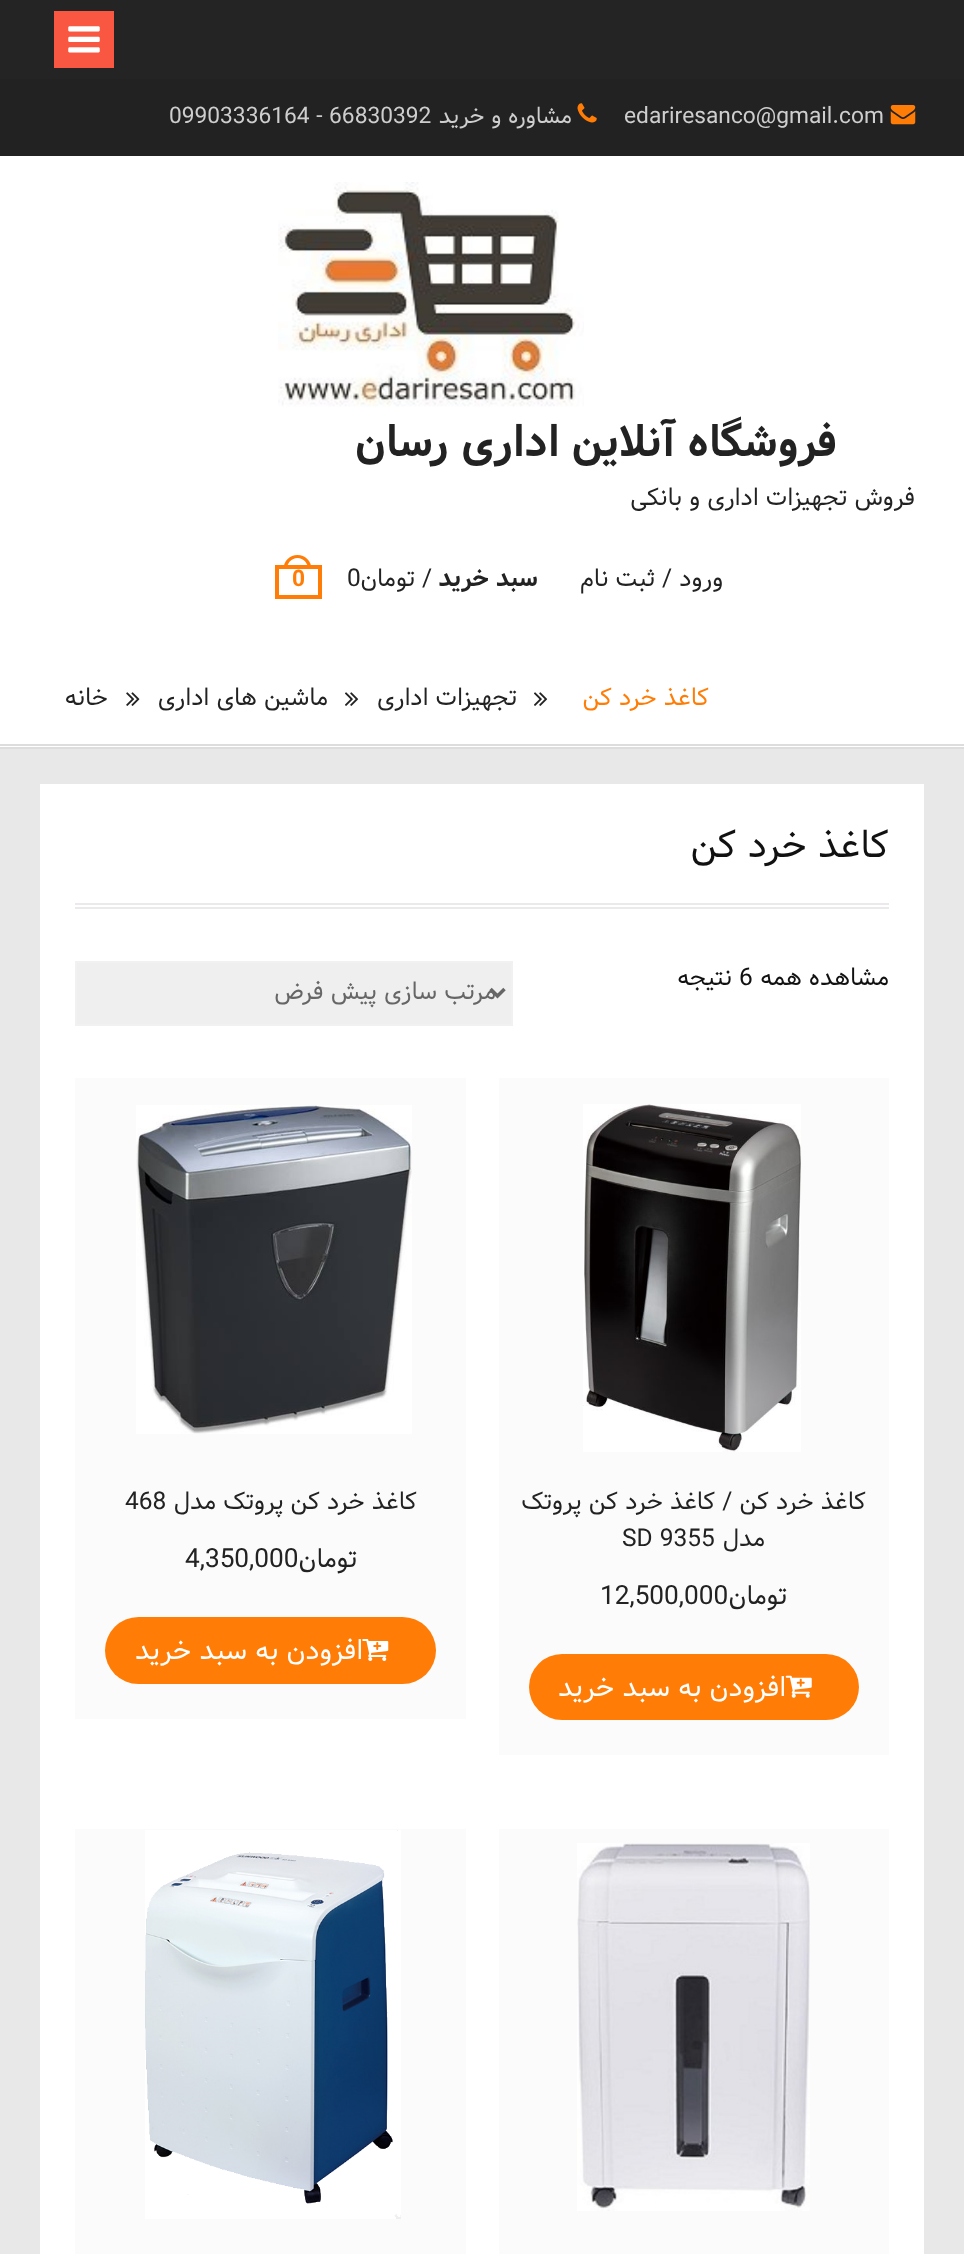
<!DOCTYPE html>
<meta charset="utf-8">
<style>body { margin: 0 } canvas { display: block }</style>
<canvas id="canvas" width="964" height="2254"></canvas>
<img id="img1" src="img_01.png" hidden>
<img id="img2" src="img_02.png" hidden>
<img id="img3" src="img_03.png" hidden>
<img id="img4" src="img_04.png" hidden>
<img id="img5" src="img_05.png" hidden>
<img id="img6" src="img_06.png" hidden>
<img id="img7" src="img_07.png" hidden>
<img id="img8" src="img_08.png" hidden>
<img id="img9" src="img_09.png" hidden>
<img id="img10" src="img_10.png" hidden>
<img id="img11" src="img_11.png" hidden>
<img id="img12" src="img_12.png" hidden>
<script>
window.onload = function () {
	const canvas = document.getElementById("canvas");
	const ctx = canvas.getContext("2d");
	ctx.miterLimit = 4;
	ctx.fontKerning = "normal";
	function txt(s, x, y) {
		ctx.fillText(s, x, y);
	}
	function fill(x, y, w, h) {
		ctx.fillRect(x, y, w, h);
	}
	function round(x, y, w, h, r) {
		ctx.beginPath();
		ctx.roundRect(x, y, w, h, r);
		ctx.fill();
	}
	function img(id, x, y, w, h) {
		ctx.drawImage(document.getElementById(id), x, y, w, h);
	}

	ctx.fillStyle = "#E8E8E8";
	fill(0, 0, 964, 2254);
	ctx.fillStyle = "#242424";
	fill(0, 0, 964, 79);
	ctx.fillStyle = "#FA5742";
	fill(54, 11, 60, 57);
	img("img1", 68, 26, 32, 27);
	ctx.fillStyle = "#222222";
	fill(0, 79, 964, 77);
	img("img2", 890, 105, 26, 20);
	img("img3", 577, 103, 20, 20);
	ctx.fillStyle = "#FFFFFF";
	fill(0, 156, 964, 591);
	img("img4", 278, 182, 306, 225);
	ctx.fillStyle = "#FF7D06";
	ctx.beginPath();
	ctx.moveTo(297.5, 555);
	ctx.bezierCurveTo(305, 555, 311.5, 561, 311.5, 569);
	ctx.lineTo(283.5, 569);
	ctx.bezierCurveTo(283.5, 561, 290, 555, 297.5, 555);
	ctx.closePath();
	ctx.moveTo(297.5, 558);
	ctx.bezierCurveTo(303.5, 558, 308, 563, 308, 569);
	ctx.lineTo(287, 569);
	ctx.bezierCurveTo(287, 563, 291.5, 558, 297.5, 558);
	ctx.closePath();
	ctx.fill("evenodd");
	ctx.strokeStyle = "#FF7D06";
	ctx.lineWidth = 4;
	ctx.strokeRect(277, 567, 43, 30);
	ctx.fillStyle = "#DDDDDD";
	fill(0, 744, 964, 2);
	fill(0, 747, 964, 2);
	img("img5", 534, 692, 14, 14);
	img("img5", 345, 692, 14, 14);
	img("img6", 126, 692, 14, 14);
	ctx.fillStyle = "#FFFFFF";
	fill(40, 784, 884, 1470);
	ctx.fillStyle = "#EBE9EB";
	fill(75, 903, 814, 2);
	fill(75, 907, 814, 2);
	ctx.fillStyle = "#EFEFEF";
	ctx.beginPath();
	ctx.rect(76, 962, 436, 63);
	ctx.fill();
	ctx.strokeStyle = "#F1F1F1";
	ctx.lineWidth = 2;
	ctx.stroke();
	ctx.beginPath();
	ctx.moveTo(490.5, 989);
	ctx.lineTo(497.5, 996);
	ctx.lineTo(504.5, 989);
	ctx.strokeStyle = "#666666";
	ctx.lineWidth = 3.5;
	ctx.stroke();
	ctx.fillStyle = "#FBFBFB";
	fill(499, 1078, 390, 677);
	img("img7", 583, 1104, 218, 348);
	ctx.fillStyle = "#FF7D06";
	round(529, 1654, 330, 66, 33);
	img("img8", 785, 1675, 27, 23);
	ctx.fillStyle = "#FBFBFB";
	fill(75, 1078, 391, 641);
	img("img9", 136, 1105, 276, 329);
	ctx.fillStyle = "#FF7D06";
	round(105, 1617, 331, 67, 33.5);
	img("img10", 362, 1639, 27, 22);
	ctx.fillStyle = "#FBFBFB";
	fill(499, 1829, 390, 425);
	img("img11", 577, 1843, 233, 368);
	fill(75, 1829, 391, 425);
	img("img12", 145, 1830, 256, 389);
	ctx.font = "22.75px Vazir";
	ctx.fillStyle = "#CECECE";
	txt("edariresanco@gmail.com", 624, 123);
	ctx.direction = "rtl";
	txt("مشاوره و خرید", 572, 123);
	ctx.direction = "ltr";
	txt("09903336164 - 66830392", 169, 123);
	ctx.direction = "rtl";
	ctx.font = "bold 43.75px Vazir";
	ctx.fillStyle = "#222222";
	txt("فروشگاه آنلاین اداری رسان", 837, 456);
	ctx.font = "24.5px Vazir";
	txt("فروش تجهیزات اداری و بانکی", 915, 505);
	txt("ورود / ثبت نام", 723, 586);
	ctx.font = "bold 24.5px Vazir";
	txt("سبد خرید", 538, 586);
	ctx.direction = "ltr";
	ctx.font = "24.5px Vazir";
	txt("/", 422, 586);
	ctx.direction = "rtl";
	txt("تومان", 415, 586);
	ctx.direction = "ltr";
	txt("0", 347, 586);
	ctx.font = "bold 22.75px Vazir";
	ctx.fillStyle = "#FF7D06";
	txt("0", 292, 586);
	ctx.direction = "rtl";
	ctx.font = "24.5px Vazir";
	txt("کاغذ خرد کن", 709, 705);
	ctx.fillStyle = "#222222";
	txt("تجهیزات اداری", 517, 705);
	txt("ماشین های اداری", 328, 705);
	txt("خانه", 108, 705);
	ctx.font = "38.5px Vazir";
	ctx.fillStyle = "#111111";
	txt("کاغذ خرد کن", 889, 857);
	ctx.font = "24.5px Vazir";
	txt("مشاهده همه", 889, 985);
	ctx.direction = "ltr";
	txt("6", 739, 985);
	ctx.direction = "rtl";
	txt("نتیجه", 732, 985);
	ctx.fillStyle = "#666666";
	txt("مرتب سازی پیش فرض", 496, 999);
	ctx.fillStyle = "#222222";
	txt("کاغذ خرد کن / کاغذ خرد کن پروتک", 866, 1509);
	txt("مدل", 765, 1546);
	ctx.direction = "ltr";
	txt("SD 9355", 622, 1546);
	ctx.direction = "rtl";
	ctx.font = "26.25px Vazir";
	txt("تومان", 787, 1604);
	ctx.direction = "ltr";
	txt("12,500,000", 600, 1604);
	ctx.direction = "rtl";
	ctx.font = "28px Vazir";
	ctx.fillStyle = "#FFFFFF";
	txt("افزودن به سبد خرید", 786, 1696);
	ctx.font = "24.5px Vazir";
	ctx.fillStyle = "#222222";
	txt("کاغذ خرد کن پروتک مدل", 417, 1509);
	ctx.direction = "ltr";
	txt("468", 125, 1509);
	ctx.direction = "rtl";
	ctx.font = "26.25px Vazir";
	txt("تومان", 357, 1567);
	ctx.direction = "ltr";
	txt("4,350,000", 185, 1567);
	ctx.direction = "rtl";
	ctx.font = "28px Vazir";
	ctx.fillStyle = "#FFFFFF";
	txt("افزودن به سبد خرید", 363, 1659);
};
</script>
